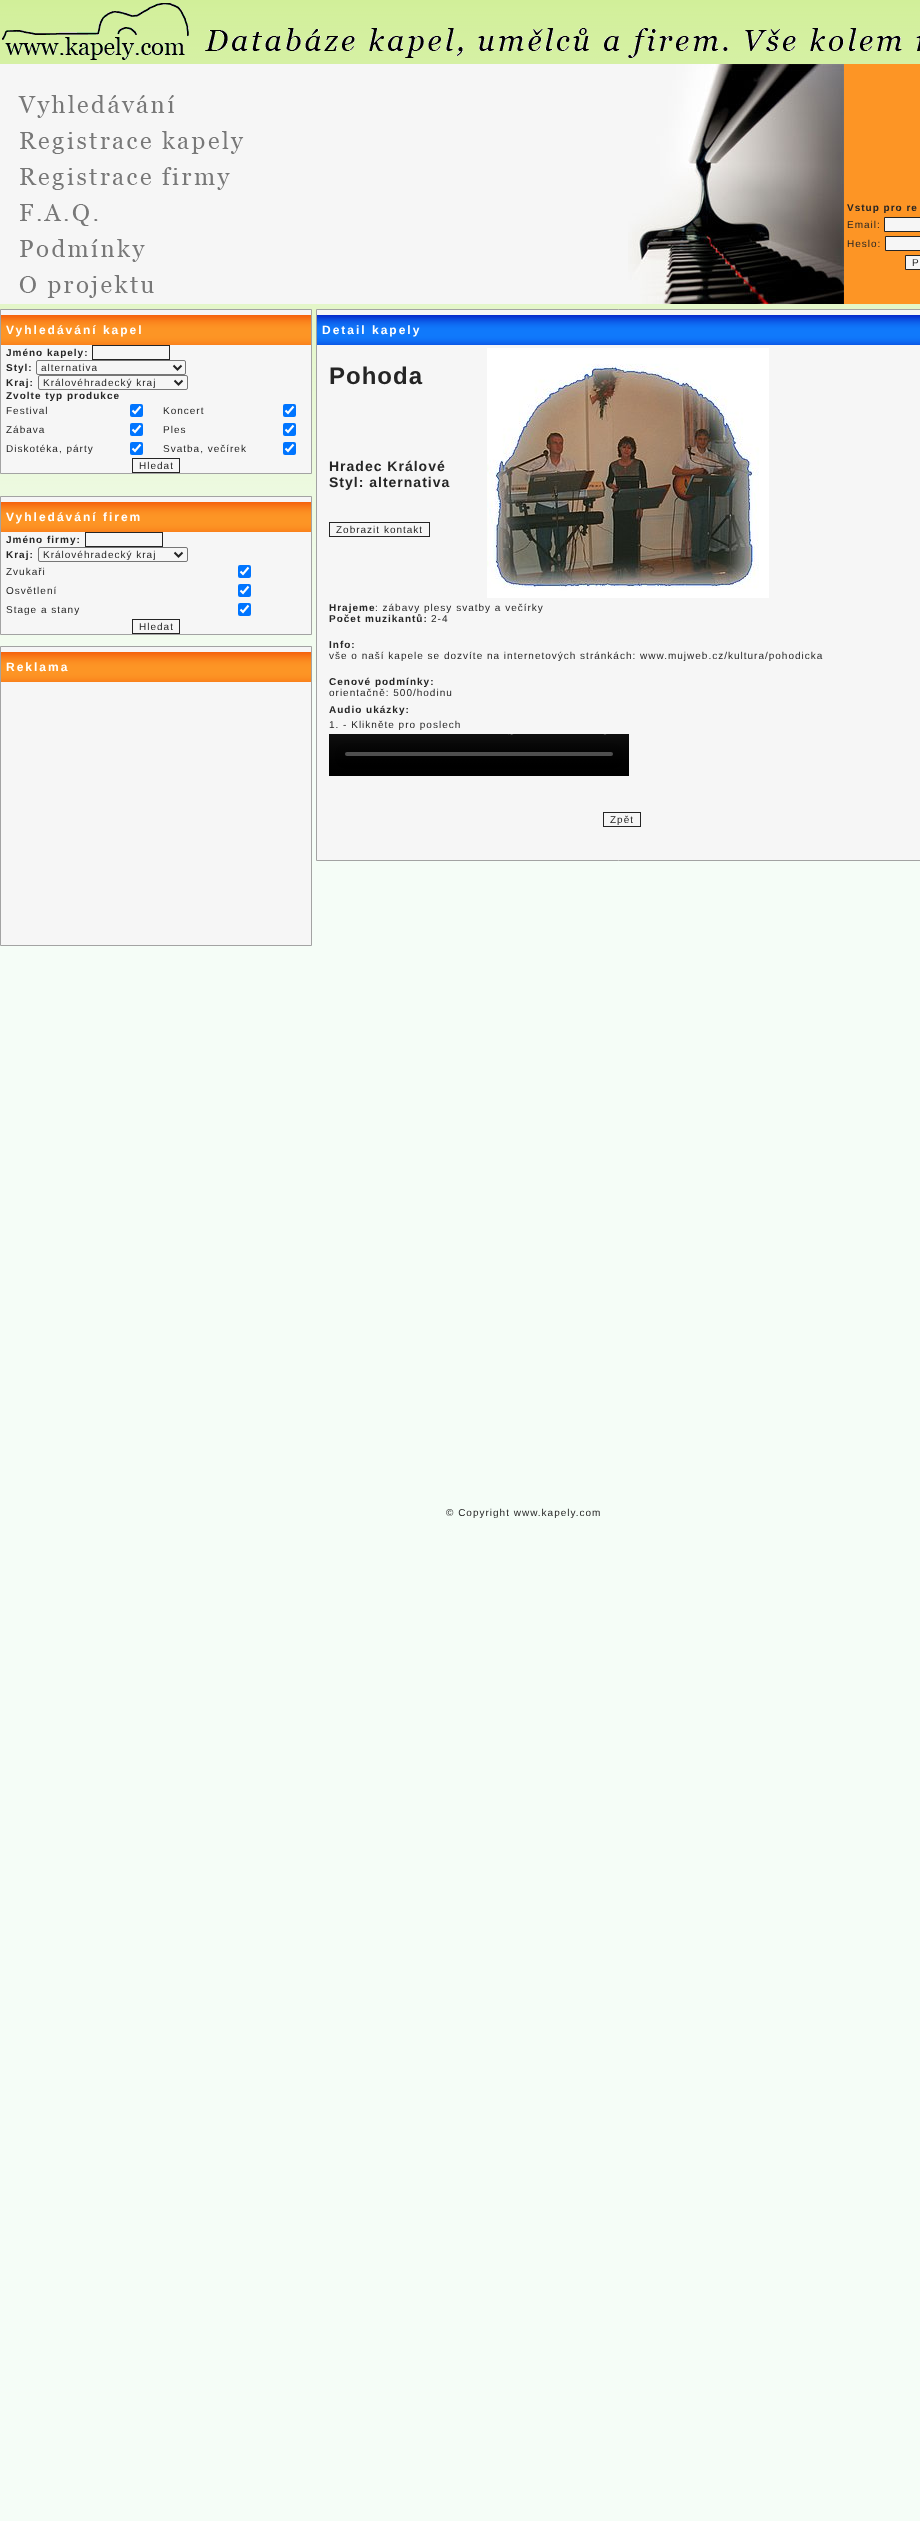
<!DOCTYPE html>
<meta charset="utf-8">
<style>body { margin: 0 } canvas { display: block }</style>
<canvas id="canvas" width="920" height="2521"></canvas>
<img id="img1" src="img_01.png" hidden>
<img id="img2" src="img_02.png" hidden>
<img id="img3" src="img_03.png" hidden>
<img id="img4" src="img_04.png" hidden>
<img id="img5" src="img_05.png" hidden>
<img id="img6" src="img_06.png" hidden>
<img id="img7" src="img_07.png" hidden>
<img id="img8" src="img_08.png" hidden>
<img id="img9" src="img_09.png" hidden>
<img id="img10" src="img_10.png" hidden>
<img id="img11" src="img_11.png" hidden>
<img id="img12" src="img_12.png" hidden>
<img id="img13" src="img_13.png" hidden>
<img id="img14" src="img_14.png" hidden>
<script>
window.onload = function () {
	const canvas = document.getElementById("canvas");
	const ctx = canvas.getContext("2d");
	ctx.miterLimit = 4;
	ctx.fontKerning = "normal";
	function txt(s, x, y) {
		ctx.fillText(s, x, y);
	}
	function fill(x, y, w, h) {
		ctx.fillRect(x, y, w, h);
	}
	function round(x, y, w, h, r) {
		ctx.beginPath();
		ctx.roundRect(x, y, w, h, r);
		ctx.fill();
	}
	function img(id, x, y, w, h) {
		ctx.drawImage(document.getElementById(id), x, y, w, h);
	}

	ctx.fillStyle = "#F5FDF7";
	fill(0, 0, 920, 2521);
	img("img1", 0, 0, 920, 682);
	img("img2", 2, 3, 187, 57);
	img("img3", 205, 28, 715, 30);
	ctx.fillStyle = "#F6F6F6";
	fill(0, 64, 628, 240);
	img("img4", 18, 95, 156, 23);
	img("img5", 20, 131, 224, 23);
	img("img6", 20, 167, 210, 23);
	img("img7", 20, 204, 78, 22);
	img("img8", 20, 239, 125, 23);
	img("img9", 19, 275, 135, 23);
	img("img10", 628, 64, 216, 240);
	ctx.fillStyle = "#FD9525";
	fill(844, 64, 76, 240);
	ctx.fillStyle = "#F6F6F6";
	ctx.beginPath();
	ctx.rect(884.5, 217.5, 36, 14);
	ctx.fill();
	ctx.strokeStyle = "#252525";
	ctx.stroke();
	ctx.beginPath();
	ctx.rect(885.5, 236.5, 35, 14);
	ctx.fill();
	ctx.stroke();
	ctx.beginPath();
	ctx.rect(905.5, 255.5, 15, 14);
	ctx.fill();
	ctx.stroke();
	ctx.beginPath();
	ctx.rect(0.5, 309.5, 311, 164);
	ctx.fill();
	ctx.strokeStyle = "#A3A3A3";
	ctx.stroke();
	img("img11", 1, 315, 310, 30);
	ctx.strokeStyle = "#252525";
	ctx.strokeRect(92.5, 345.5, 77, 14);
	ctx.beginPath();
	ctx.roundRect(36.5, 360.5, 149, 14, 1.5);
	ctx.strokeStyle = "#767676";
	ctx.stroke();
	ctx.beginPath();
	ctx.moveTo(173.5, 365.5);
	ctx.lineTo(177.5, 369.5);
	ctx.lineTo(181.5, 365.5);
	ctx.strokeStyle = "#252525";
	ctx.lineWidth = 2;
	ctx.stroke();
	ctx.beginPath();
	ctx.roundRect(38.5, 375.5, 149, 14, 1.5);
	ctx.strokeStyle = "#767676";
	ctx.lineWidth = 1;
	ctx.stroke();
	ctx.beginPath();
	ctx.moveTo(174.5, 380.5);
	ctx.lineTo(178.5, 384.5);
	ctx.lineTo(182.5, 380.5);
	ctx.strokeStyle = "#252525";
	ctx.lineWidth = 2;
	ctx.stroke();
	ctx.fillStyle = "#0075FF";
	round(130, 404, 13, 13, 2);
	ctx.beginPath();
	ctx.moveTo(132.5, 410.5);
	ctx.lineTo(135, 413);
	ctx.lineTo(140.5, 406.5);
	ctx.strokeStyle = "#FFFFFF";
	ctx.lineWidth = 2.1;
	ctx.stroke();
	round(283, 404, 13, 13, 2);
	ctx.beginPath();
	ctx.moveTo(285.5, 410.5);
	ctx.lineTo(288, 413);
	ctx.lineTo(293.5, 406.5);
	ctx.stroke();
	round(130, 423, 13, 13, 2);
	ctx.beginPath();
	ctx.moveTo(132.5, 429.5);
	ctx.lineTo(135, 432);
	ctx.lineTo(140.5, 425.5);
	ctx.stroke();
	round(283, 423, 13, 13, 2);
	ctx.beginPath();
	ctx.moveTo(285.5, 429.5);
	ctx.lineTo(288, 432);
	ctx.lineTo(293.5, 425.5);
	ctx.stroke();
	round(130, 442, 13, 13, 2);
	ctx.beginPath();
	ctx.moveTo(132.5, 448.5);
	ctx.lineTo(135, 451);
	ctx.lineTo(140.5, 444.5);
	ctx.stroke();
	round(283, 442, 13, 13, 2);
	ctx.beginPath();
	ctx.moveTo(285.5, 448.5);
	ctx.lineTo(288, 451);
	ctx.lineTo(293.5, 444.5);
	ctx.stroke();
	ctx.strokeStyle = "#252525";
	ctx.lineWidth = 1;
	ctx.strokeRect(132.5, 458.5, 47, 14);
	ctx.fillStyle = "#F6F6F6";
	ctx.beginPath();
	ctx.rect(0.5, 496.5, 311, 138);
	ctx.fill();
	ctx.strokeStyle = "#A3A3A3";
	ctx.stroke();
	img("img11", 1, 502, 310, 30);
	ctx.strokeStyle = "#252525";
	ctx.strokeRect(85.5, 532.5, 77, 14);
	ctx.beginPath();
	ctx.roundRect(38.5, 547.5, 149, 14, 1.5);
	ctx.strokeStyle = "#767676";
	ctx.stroke();
	ctx.beginPath();
	ctx.moveTo(174.5, 552.5);
	ctx.lineTo(178.5, 556.5);
	ctx.lineTo(182.5, 552.5);
	ctx.strokeStyle = "#252525";
	ctx.lineWidth = 2;
	ctx.stroke();
	ctx.fillStyle = "#0075FF";
	round(238, 565, 13, 13, 2);
	ctx.beginPath();
	ctx.moveTo(240.5, 571.5);
	ctx.lineTo(243, 574);
	ctx.lineTo(248.5, 567.5);
	ctx.strokeStyle = "#FFFFFF";
	ctx.lineWidth = 2.1;
	ctx.stroke();
	round(238, 584, 13, 13, 2);
	ctx.beginPath();
	ctx.moveTo(240.5, 590.5);
	ctx.lineTo(243, 593);
	ctx.lineTo(248.5, 586.5);
	ctx.stroke();
	round(238, 603, 13, 13, 2);
	ctx.beginPath();
	ctx.moveTo(240.5, 609.5);
	ctx.lineTo(243, 612);
	ctx.lineTo(248.5, 605.5);
	ctx.stroke();
	ctx.strokeStyle = "#252525";
	ctx.lineWidth = 1;
	ctx.strokeRect(132.5, 619.5, 47, 14);
	ctx.fillStyle = "#F6F6F6";
	ctx.beginPath();
	ctx.rect(0.5, 646.5, 311, 299);
	ctx.fill();
	ctx.strokeStyle = "#A3A3A3";
	ctx.stroke();
	img("img11", 1, 652, 310, 30);
	ctx.beginPath();
	ctx.rect(316.5, 309.5, 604, 551);
	ctx.fill();
	ctx.stroke();
	img("img12", 317, 315, 603, 30);
	img("img13", 487, 348, 282, 250);
	ctx.strokeStyle = "#252525";
	ctx.strokeRect(329.5, 522.5, 100, 14);
	img("img14", 329, 734, 300, 42);
	ctx.strokeRect(603.5, 812.5, 37, 14);
	ctx.letterSpacing = "1px";
	ctx.font = "bold 10px Liberation Sans";
	ctx.fillStyle = "#252525";
	txt("Vstup pro re", 847, 211);
	ctx.font = "10px Liberation Sans";
	txt("Email:", 847, 228);
	txt("Heslo:", 847, 247);
	txt("P", 912, 266);
	ctx.letterSpacing = "2px";
	ctx.font = "bold 12px Liberation Sans";
	ctx.fillStyle = "#FFFFFF";
	txt("Vyhledávání kapel", 6, 334);
	ctx.letterSpacing = "1px";
	ctx.font = "bold 10px Liberation Sans";
	ctx.fillStyle = "#252525";
	txt("Jméno kapely:", 6, 356);
	txt("Styl:", 6, 371);
	ctx.font = "10px Liberation Sans";
	txt("alternativa", 41, 371);
	ctx.font = "bold 10px Liberation Sans";
	txt("Kraj:", 6, 386);
	ctx.font = "10px Liberation Sans";
	txt("Královéhradecký kraj", 43, 386);
	ctx.font = "bold 10px Liberation Sans";
	txt("Zvolte typ produkce", 6, 399);
	ctx.font = "10px Liberation Sans";
	txt("Festival", 6, 414);
	txt("Koncert", 163, 414);
	txt("Zábava", 6, 433);
	txt("Ples", 163, 433);
	txt("Diskotéka, párty", 6, 452);
	txt("Svatba, večírek", 163, 452);
	txt("Hledat", 139, 469);
	ctx.letterSpacing = "2px";
	ctx.font = "bold 12px Liberation Sans";
	ctx.fillStyle = "#FFFFFF";
	txt("Vyhledávání firem", 6, 521);
	ctx.letterSpacing = "1px";
	ctx.font = "bold 10px Liberation Sans";
	ctx.fillStyle = "#252525";
	txt("Jméno firmy:", 6, 543);
	txt("Kraj:", 6, 558);
	ctx.font = "10px Liberation Sans";
	txt("Královéhradecký kraj", 43, 558);
	txt("Zvukaři", 6, 575);
	txt("Osvětlení", 6, 594);
	txt("Stage a stany", 6, 613);
	txt("Hledat", 139, 630);
	ctx.letterSpacing = "2px";
	ctx.font = "bold 12px Liberation Sans";
	ctx.fillStyle = "#FFFFFF";
	txt("Reklama", 6, 671);
	txt("Detail kapely", 322, 334);
	ctx.letterSpacing = "1px";
	ctx.font = "bold 24px Liberation Sans";
	ctx.fillStyle = "#252525";
	txt("Pohoda", 329, 384);
	ctx.font = "bold 14px Liberation Sans";
	txt("Hradec Králové", 329, 471);
	txt("Styl: alternativa", 329, 487);
	ctx.font = "10px Liberation Sans";
	txt("Zobrazit kontakt", 336, 533);
	ctx.font = "bold 10px Liberation Sans";
	txt("Hrajeme", 329, 611);
	ctx.font = "10px Liberation Sans";
	txt(": zábavy plesy svatby a večírky", 375, 611);
	ctx.font = "bold 10px Liberation Sans";
	txt("Počet muzikantů:", 329, 622);
	ctx.font = "10px Liberation Sans";
	txt("2-4", 431, 622);
	ctx.font = "bold 10px Liberation Sans";
	txt("Info:", 329, 648);
	ctx.font = "10px Liberation Sans";
	txt("vše o naší kapele se dozvíte na internetových stránkách: www.mujweb.cz/kultura/pohodicka", 329, 659);
	ctx.font = "bold 10px Liberation Sans";
	txt("Cenové podmínky:", 329, 685);
	ctx.font = "10px Liberation Sans";
	txt("orientačně: 500/hodinu", 329, 696);
	ctx.font = "bold 10px Liberation Sans";
	txt("Audio ukázky:", 329, 713);
	ctx.font = "10px Liberation Sans";
	txt("1. - Klikněte pro poslech", 329, 728);
	txt("Zpět", 610, 823);
	txt("© Copyright www.kapely.com", 446, 1516);
};
</script>
